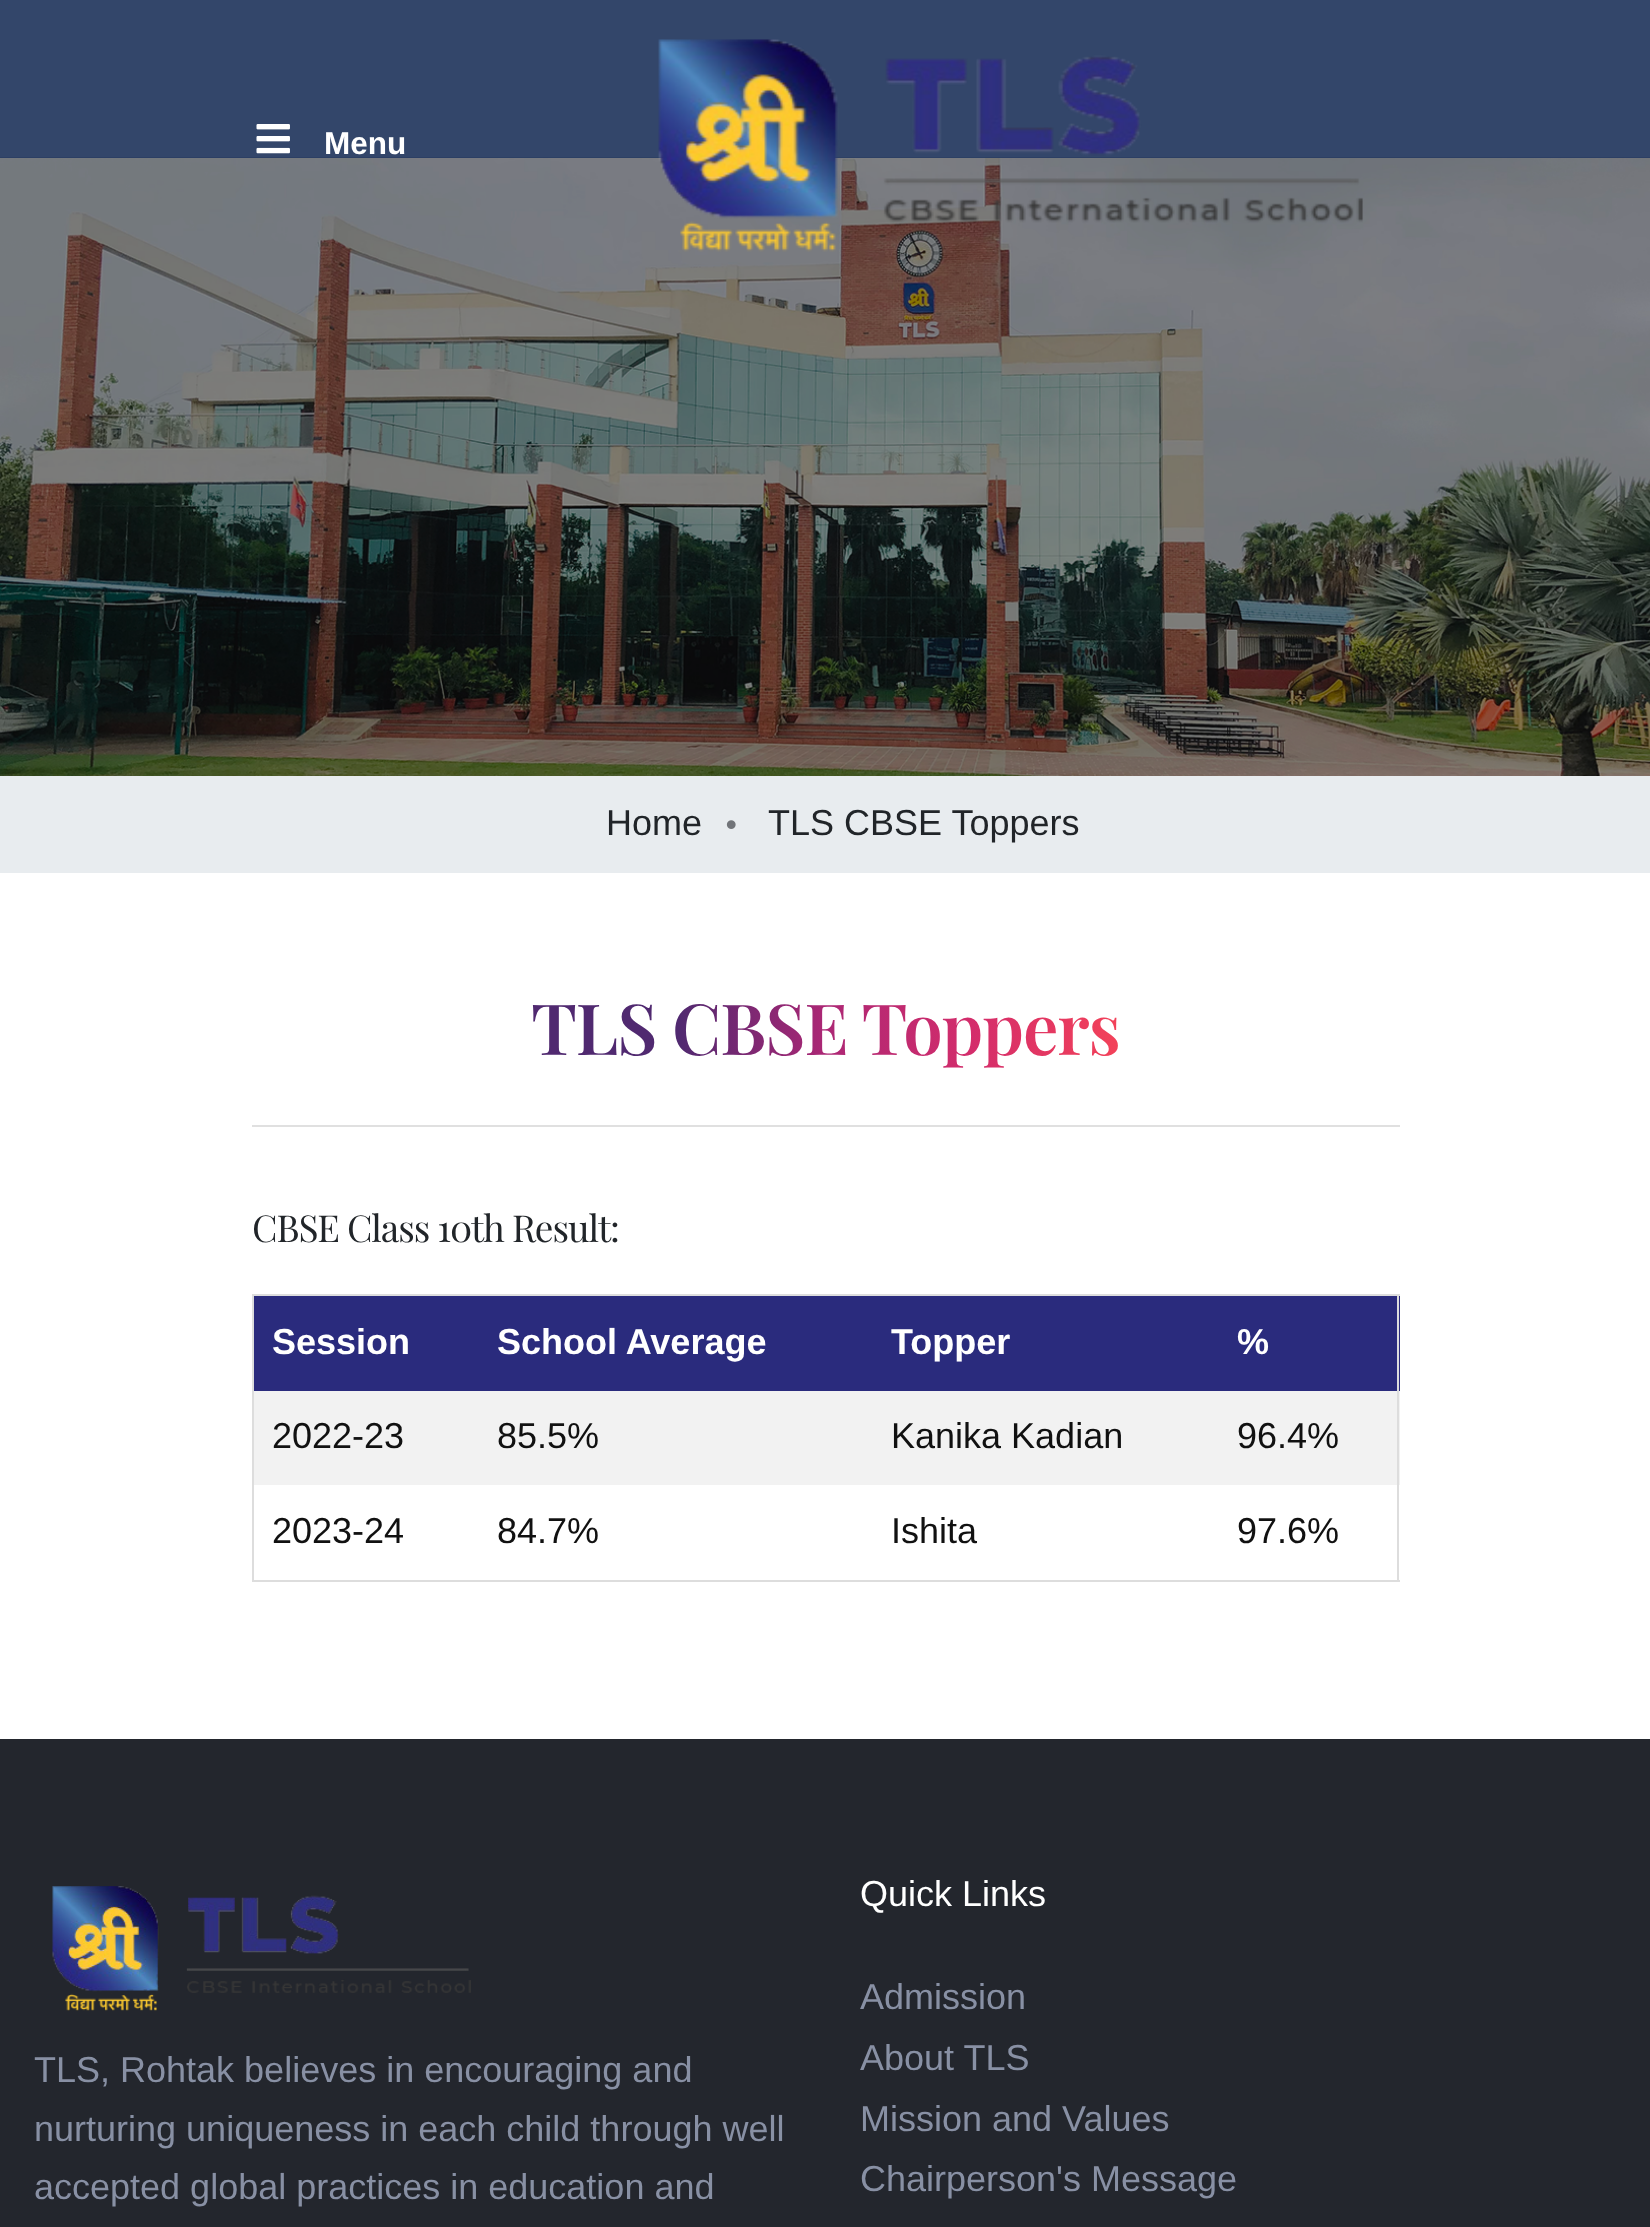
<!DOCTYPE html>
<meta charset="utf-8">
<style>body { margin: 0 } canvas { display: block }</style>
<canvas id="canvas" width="1650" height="2227"></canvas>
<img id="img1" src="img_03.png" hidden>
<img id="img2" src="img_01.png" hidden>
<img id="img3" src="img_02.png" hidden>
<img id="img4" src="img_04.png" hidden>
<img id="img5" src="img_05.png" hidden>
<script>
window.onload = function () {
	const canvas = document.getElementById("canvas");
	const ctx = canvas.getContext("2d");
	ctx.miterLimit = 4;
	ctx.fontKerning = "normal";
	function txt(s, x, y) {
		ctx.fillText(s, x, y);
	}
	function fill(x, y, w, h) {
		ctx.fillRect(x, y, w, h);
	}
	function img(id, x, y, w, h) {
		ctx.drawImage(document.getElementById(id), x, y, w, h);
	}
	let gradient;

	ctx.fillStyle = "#FFFFFF";
	fill(0, 0, 1650, 2227);
	img("img1", 0, 157, 1650, 619);
	ctx.fillStyle = "rgba(0, 24, 69, 0.8)";
	fill(0, 0, 1650, 158);
	img("img2", 256, 124, 34, 30);
	img("img3", 658, 39, 705, 213);
	ctx.fillStyle = "#E8ECEF";
	fill(0, 776, 1650, 97);
	img("img4", 726, 820, 10, 9);
	ctx.fillStyle = "#E0E0E0";
	fill(252, 1125, 1148, 2);
	ctx.fillStyle = "#DDDDDD";
	fill(252, 1294, 1148, 2);
	ctx.fillStyle = "#2A2B7D";
	fill(254, 1296, 1146, 95);
	ctx.fillStyle = "#F2F2F2";
	fill(254, 1391, 1146, 94);
	ctx.fillStyle = "#DDDDDD";
	fill(1397, 1294, 2, 288);
	fill(252, 1580, 1148, 2);
	fill(252, 1294, 2, 288);
	ctx.fillStyle = "#23262D";
	fill(0, 1739, 1650, 488);
	img("img5", 52, 1886, 419, 125);
	ctx.font = "bold 31.5px Liberation Sans";
	ctx.fillStyle = "#FFFFFF";
	txt("Menu", 324, 154);
	ctx.font = "36px Liberation Sans";
	ctx.fillStyle = "#212529";
	txt("Home", 606, 835);
	txt("TLS CBSE Toppers", 768, 835);
	ctx.letterSpacing = "-1.1px";
	ctx.font = "600 70.5px Playfair Display";
	gradient = ctx.createLinearGradient(531, 1025, 1120, 1025);
	gradient.addColorStop(0, "#502970");
	gradient.addColorStop(0.25, "#502970");
	gradient.addColorStop(0.5, "#AC2775");
	gradient.addColorStop(0.75, "#D42D6B");
	gradient.addColorStop(1, "#F34259");
	ctx.fillStyle = gradient;
	txt("TLS CBSE Toppers", 531, 1055);
	ctx.font = "37.1px Playfair Display";
	ctx.fillStyle = "#212529";
	txt("CBSE Class 10th Result:", 252, 1242);
	ctx.letterSpacing = "0px";
	ctx.font = "bold 36px Liberation Sans";
	ctx.fillStyle = "#FFFFFF";
	txt("Session", 272, 1354);
	txt("School Average", 497, 1354);
	txt("Topper", 891, 1354);
	txt("%", 1237, 1354);
	ctx.font = "36px Liberation Sans";
	ctx.fillStyle = "#111111";
	txt("2022-23", 272, 1448);
	txt("85.5%", 497, 1448);
	txt("Kanika Kadian", 891, 1448);
	txt("96.4%", 1237, 1448);
	txt("2023-24", 272, 1543);
	txt("84.7%", 497, 1543);
	txt("Ishita", 891, 1543);
	txt("97.6%", 1237, 1543);
	ctx.fillStyle = "#8890A4";
	txt("TLS, Rohtak believes in encouraging and", 34, 2082);
	txt("nurturing uniqueness in each child through well", 34, 2141);
	txt("accepted global practices in education and", 34, 2199);
	ctx.fillStyle = "#FFFFFF";
	txt("Quick Links", 860, 1906);
	ctx.fillStyle = "#8890A4";
	txt("Admission", 860, 2009);
	txt("About TLS", 860, 2070);
	txt("Mission and Values", 860, 2131);
	txt("Chairperson's Message", 860, 2191);
};
</script>
